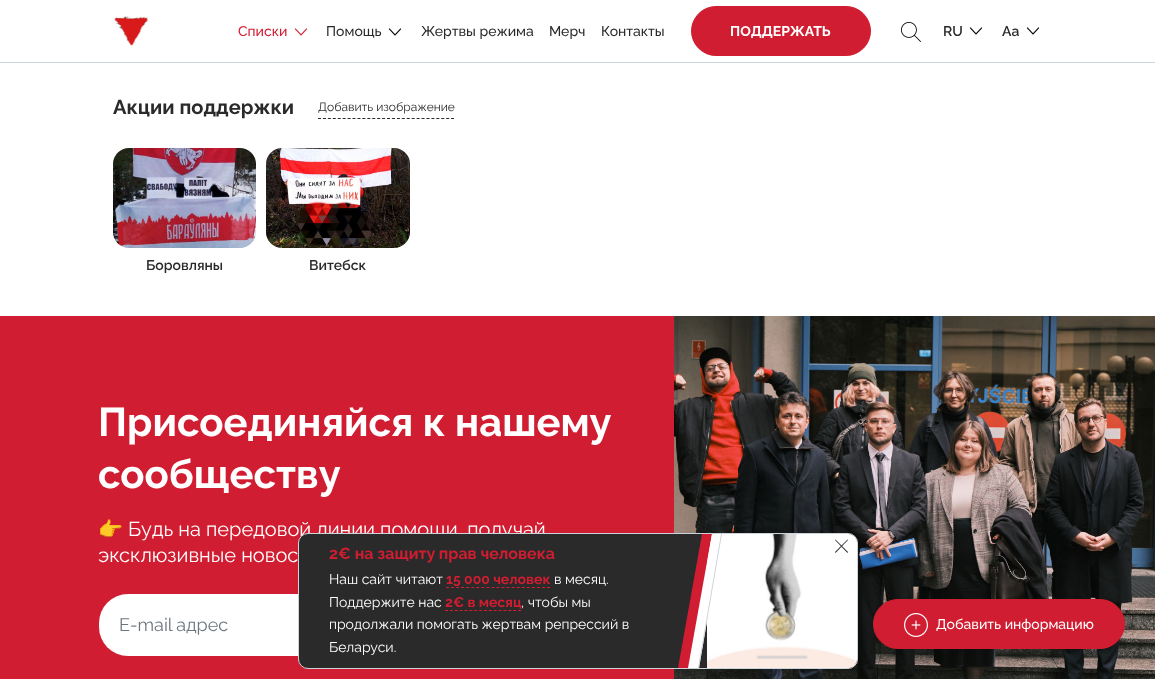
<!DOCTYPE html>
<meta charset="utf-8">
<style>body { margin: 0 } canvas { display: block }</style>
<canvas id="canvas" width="1155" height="679"></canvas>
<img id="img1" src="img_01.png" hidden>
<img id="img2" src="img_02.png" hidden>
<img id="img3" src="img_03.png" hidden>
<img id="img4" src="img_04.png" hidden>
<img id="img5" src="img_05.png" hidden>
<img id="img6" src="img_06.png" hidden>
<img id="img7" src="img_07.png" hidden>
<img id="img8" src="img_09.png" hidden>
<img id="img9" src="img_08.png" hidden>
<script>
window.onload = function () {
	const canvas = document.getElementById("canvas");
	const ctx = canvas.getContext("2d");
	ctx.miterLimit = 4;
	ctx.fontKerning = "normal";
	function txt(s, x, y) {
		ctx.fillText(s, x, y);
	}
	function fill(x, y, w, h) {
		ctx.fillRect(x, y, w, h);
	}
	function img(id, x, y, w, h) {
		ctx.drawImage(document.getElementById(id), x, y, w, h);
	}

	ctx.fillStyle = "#FFFFFF";
	fill(0, 0, 1155, 679);
	ctx.fillStyle = "#CDD4D9";
	fill(0, 62, 1155, 1);
	img("img1", 114, 15, 34, 31);
	img("img2", 294, 28, 14, 8);
	img("img3", 388, 28, 14, 8);
	ctx.fillStyle = "#D11D31";
	ctx.beginPath();
	ctx.roundRect(691.5, 6.5, 179, 49, 24.5);
	ctx.fill();
	ctx.strokeStyle = "#D11D31";
	ctx.stroke();
	img("img4", 901, 22, 20, 20);
	img("img3", 969, 27, 14, 8);
	img("img3", 1026, 27, 14, 8);
	ctx.beginPath();
	ctx.moveTo(318, 118.5);
	ctx.lineTo(454, 118.5);
	ctx.strokeStyle = "#2A2A2A";
	ctx.setLineDash([3, 1.93]);
	ctx.stroke();
	img("img5", 113, 148, 143, 100);
	img("img6", 266, 148, 144, 100);
	fill(0, 316, 674, 363);
	img("img7", 674, 316, 481, 363);
	ctx.fillStyle = "#FFFFFF";
	ctx.beginPath();
	ctx.roundRect(99, 594, 350, 62, [29, 0, 0, 29]);
	ctx.fill();
	ctx.fillStyle = "#D11D31";
	ctx.beginPath();
	ctx.roundRect(873.5, 599.5, 251, 49, 24.5);
	ctx.fill();
	ctx.strokeStyle = "#D11D31";
	ctx.setLineDash([]);
	ctx.stroke();
	img("img8", 904, 613, 24, 24);
	ctx.font = "500 14px Raleway";
	txt("Списки", 238, 36);
	ctx.fillStyle = "#2A2A2A";
	txt("Помощь", 326, 36);
	txt("Жертвы режима", 421, 36);
	txt("Мерч", 549, 36);
	txt("Контакты", 601, 36);
	ctx.font = "bold 14px Raleway";
	ctx.fillStyle = "#FFFFFF";
	txt("ПОДДЕРЖАТЬ", 730, 36);
	ctx.font = "600 14px Raleway";
	ctx.fillStyle = "#2A2A2A";
	txt("RU", 943, 36);
	txt("Aa", 1002, 36);
	ctx.font = "bold 20px Raleway";
	txt("Акции поддержки", 113, 114);
	ctx.font = "12px Raleway";
	txt("Добавить изображение", 318, 111);
	ctx.font = "600 14px Raleway";
	txt("Боровляны", 146, 270);
	txt("Витебск", 309, 270);
	ctx.font = "bold 40px Raleway";
	ctx.fillStyle = "#FFFFFF";
	txt("Присоединяйся к нашему", 98, 436);
	txt("сообществу", 98, 488);
	ctx.font = "20px Noto Color Emoji";
	txt("👉", 98, 536);
	ctx.font = "20px Raleway";
	txt("Будь на передовой линии помощи, получай", 128, 536);
	txt("эксклюзивные новос", 98, 562);
	ctx.wordSpacing = "-1px";
	ctx.font = "18px Raleway";
	ctx.fillStyle = "#6C757D";
	txt("Е-mail адрес", 119, 631);
	ctx.fillStyle = "#2A2A2A";
	ctx.beginPath();
	ctx.roundRect(298.5, 533.5, 559, 135, 9.5);
	ctx.fill();
	ctx.strokeStyle = "#CDD4D9";
	ctx.stroke();
	ctx.wordSpacing = "0px";
	ctx.font = "bold 16px Raleway";
	ctx.fillStyle = "#D11D31";
	txt("2€ на защиту прав человека", 329, 559);
	ctx.font = "14px Raleway";
	ctx.fillStyle = "#FFFFFF";
	txt("Наш сайт читают", 329, 584);
	ctx.font = "bold 14px Raleway";
	ctx.fillStyle = "#D11D31";
	txt("15 000 человек", 446, 584);
	ctx.beginPath();
	ctx.moveTo(446, 587.5);
	ctx.lineTo(550, 587.5);
	ctx.strokeStyle = "#D11D31";
	ctx.setLineDash([3, 2.05]);
	ctx.stroke();
	ctx.font = "14px Raleway";
	ctx.fillStyle = "#FFFFFF";
	txt("в месяц.", 554, 584);
	txt("Поддержите нас", 329, 607);
	ctx.font = "bold 14px Raleway";
	ctx.fillStyle = "#D11D31";
	txt("2€ в месяц", 445, 607);
	ctx.beginPath();
	ctx.moveTo(445, 610.5);
	ctx.lineTo(521, 610.5);
	ctx.setLineDash([3, 1.87]);
	ctx.stroke();
	ctx.font = "14px Raleway";
	ctx.fillStyle = "#FFFFFF";
	txt(", чтобы мы", 521, 607);
	txt("продолжали помогать жертвам репрессий в", 329, 629);
	txt("Беларуси.", 329, 652);
	ctx.beginPath();
	ctx.roundRect(707, 534, 150, 134, [0, 9, 9, 0]);
	ctx.fill();
	img("img9", 707, 534, 150, 134);
	ctx.fillStyle = "#D11D31";
	ctx.beginPath();
	ctx.moveTo(678, 668);
	ctx.lineTo(702, 534);
	ctx.lineTo(712, 534);
	ctx.lineTo(689, 668);
	ctx.closePath();
	ctx.fill();
	ctx.fillStyle = "#FFFFFF";
	ctx.beginPath();
	ctx.moveTo(688, 668);
	ctx.lineTo(712, 534);
	ctx.lineTo(722, 534);
	ctx.lineTo(699, 668);
	ctx.closePath();
	ctx.fill();
	ctx.fillStyle = "#CDD4D9";
	ctx.beginPath();
	ctx.moveTo(698, 668);
	ctx.lineTo(721, 534);
	ctx.lineTo(722, 534);
	ctx.lineTo(699, 668);
	ctx.closePath();
	ctx.fill();
	ctx.fillStyle = "#2A2A2A";
	ctx.beginPath();
	ctx.moveTo(848, 540);
	ctx.lineTo(835.5, 553);
	ctx.lineTo(835, 552);
	ctx.lineTo(847.5, 539.5);
	ctx.closePath();
	ctx.fill();
	ctx.beginPath();
	ctx.moveTo(835.5, 539.5);
	ctx.lineTo(848, 552);
	ctx.lineTo(847.5, 553);
	ctx.lineTo(835, 540);
	ctx.closePath();
	ctx.fill();
	ctx.font = "500 14px Raleway";
	ctx.fillStyle = "#FFFFFF";
	txt("Добавить информацию", 936, 629);
};
</script>
